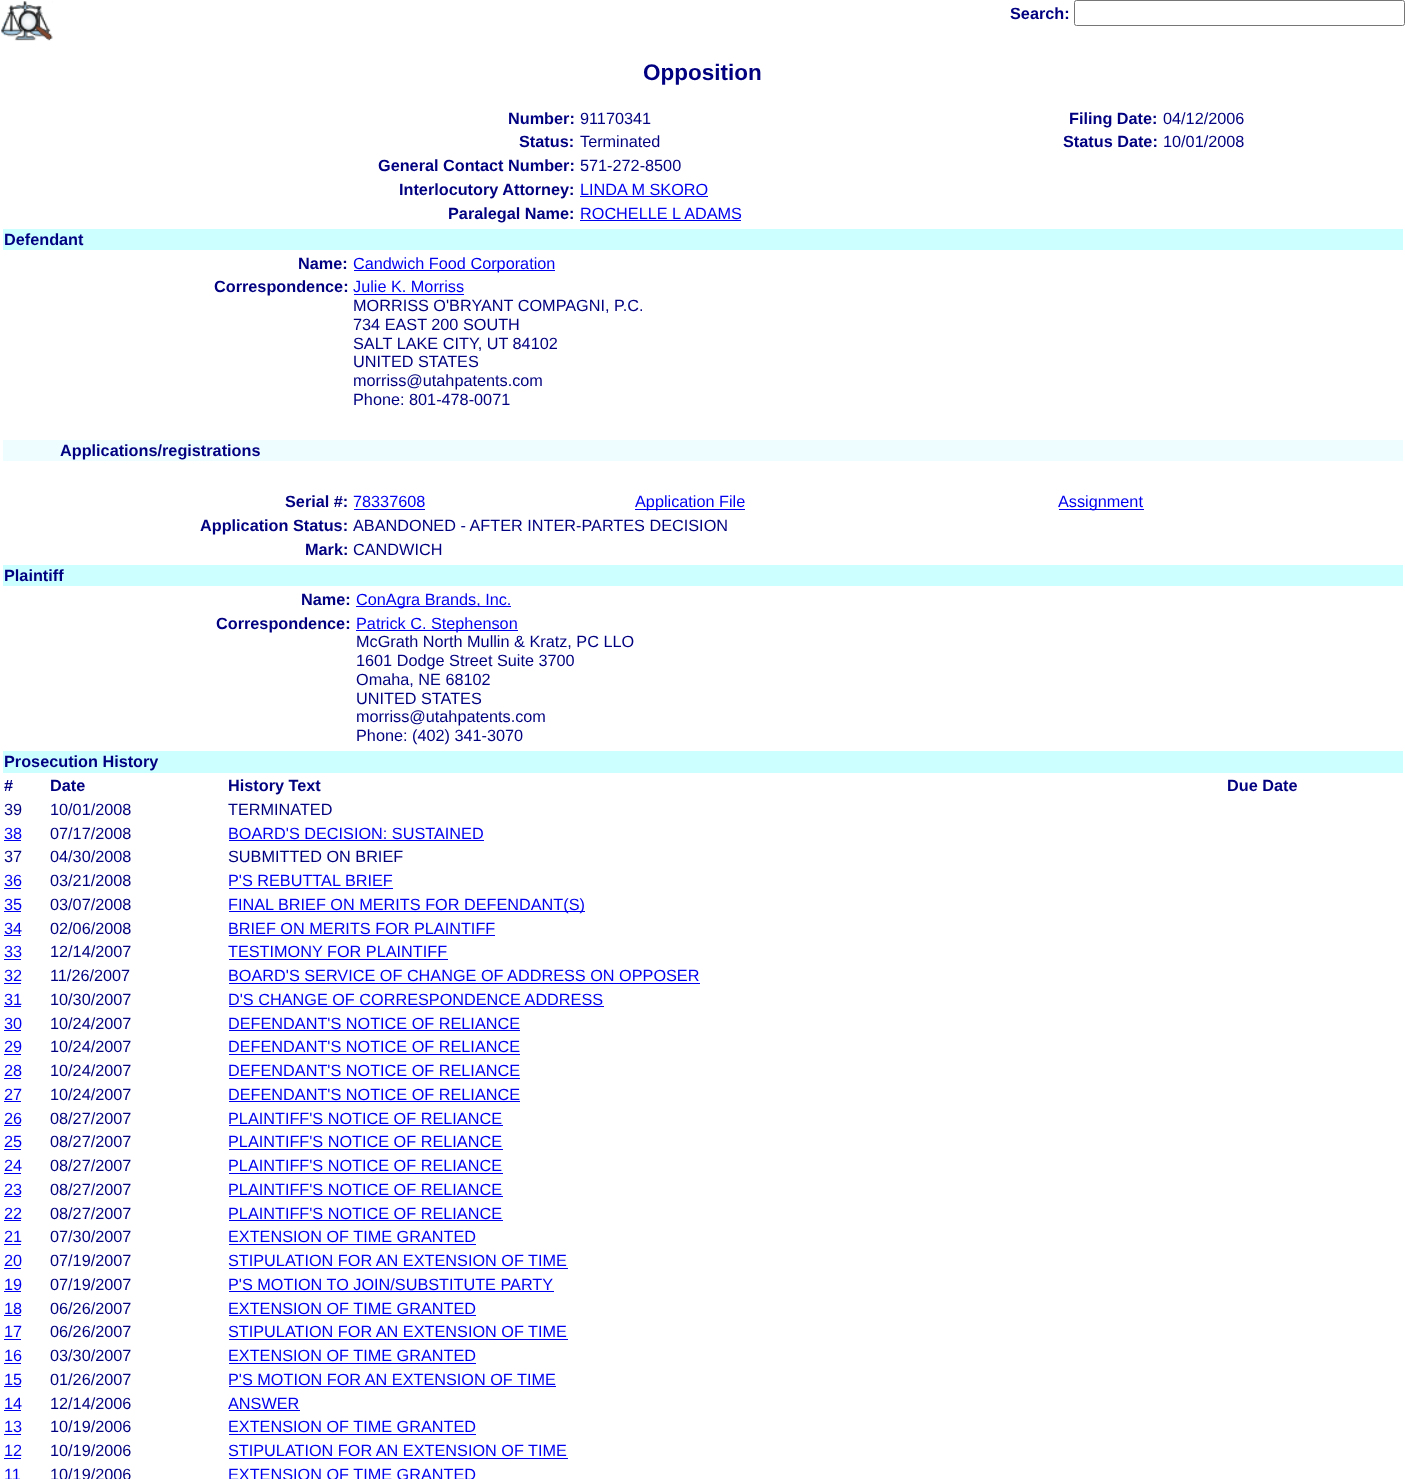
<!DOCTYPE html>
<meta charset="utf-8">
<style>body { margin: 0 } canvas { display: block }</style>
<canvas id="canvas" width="1405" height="1479"></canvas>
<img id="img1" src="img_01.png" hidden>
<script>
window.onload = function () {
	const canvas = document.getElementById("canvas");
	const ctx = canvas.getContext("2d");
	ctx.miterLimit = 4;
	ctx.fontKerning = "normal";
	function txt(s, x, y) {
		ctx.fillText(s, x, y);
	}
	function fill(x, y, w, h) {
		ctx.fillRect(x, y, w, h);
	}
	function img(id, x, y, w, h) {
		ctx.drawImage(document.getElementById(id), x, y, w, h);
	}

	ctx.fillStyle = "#FFFFFF";
	fill(0, 0, 1405, 1479);
	img("img1", 1, 1, 52, 40);
	ctx.beginPath();
	ctx.roundRect(1074.5, 0.5, 330, 25, 2);
	ctx.strokeStyle = "#767676";
	ctx.stroke();
	ctx.fillStyle = "#0000EE";
	fill(580, 196, 128, 1);
	fill(580, 220, 161, 1);
	ctx.fillStyle = "#CCFFFF";
	fill(3, 229, 1400, 21);
	ctx.fillStyle = "#0000EE";
	fill(354, 270, 201, 1);
	fill(354, 294, 110, 1);
	ctx.fillStyle = "#EEFDFF";
	fill(3, 440, 1400, 21);
	ctx.fillStyle = "#0000EE";
	fill(354, 509, 71, 1);
	fill(635, 509, 110, 1);
	fill(1059, 509, 85, 1);
	ctx.fillStyle = "#CCFFFF";
	fill(3, 565, 1400, 21);
	ctx.fillStyle = "#0000EE";
	fill(356, 606, 155, 1);
	fill(356, 630, 162, 1);
	ctx.fillStyle = "#CCFFFF";
	fill(3, 751, 1400, 22);
	ctx.fillStyle = "#0000EE";
	fill(4, 840, 17, 1);
	fill(229, 840, 255, 1);
	fill(4, 888, 17, 1);
	fill(229, 888, 164, 1);
	fill(4, 911, 17, 1);
	fill(229, 911, 356, 1);
	fill(4, 935, 17, 1);
	fill(229, 935, 266, 1);
	fill(4, 959, 17, 1);
	fill(229, 959, 219, 1);
	fill(4, 983, 17, 1);
	fill(229, 983, 471, 1);
	fill(4, 1006, 17, 1);
	fill(229, 1006, 375, 1);
	fill(4, 1030, 17, 1);
	fill(229, 1030, 291, 1);
	fill(4, 1054, 17, 1);
	fill(229, 1054, 291, 1);
	fill(4, 1078, 17, 1);
	fill(229, 1078, 291, 1);
	fill(4, 1101, 17, 1);
	fill(229, 1101, 291, 1);
	fill(4, 1125, 17, 1);
	fill(229, 1125, 274, 1);
	fill(4, 1149, 17, 1);
	fill(229, 1149, 274, 1);
	fill(4, 1173, 17, 1);
	fill(229, 1173, 274, 1);
	fill(4, 1196, 17, 1);
	fill(229, 1196, 274, 1);
	fill(4, 1220, 17, 1);
	fill(229, 1220, 274, 1);
	fill(4, 1244, 17, 1);
	fill(229, 1244, 247, 1);
	fill(4, 1268, 17, 1);
	fill(229, 1268, 339, 1);
	fill(4, 1291, 17, 1);
	fill(229, 1291, 325, 1);
	fill(4, 1315, 17, 1);
	fill(229, 1315, 247, 1);
	fill(4, 1339, 17, 1);
	fill(229, 1339, 339, 1);
	fill(4, 1363, 17, 1);
	fill(229, 1363, 247, 1);
	fill(4, 1386, 17, 1);
	fill(229, 1386, 327, 1);
	fill(4, 1410, 17, 1);
	fill(229, 1410, 71, 1);
	fill(4, 1434, 17, 1);
	fill(229, 1434, 247, 1);
	fill(4, 1458, 17, 1);
	fill(229, 1458, 339, 1);
	ctx.font = "bold 16.25px Liberation Sans";
	ctx.fillStyle = "#000080";
	txt("Search:", 1010, 19);
	ctx.font = "bold 22.5px Liberation Sans";
	txt("Opposition", 643, 80);
	ctx.font = "bold 16.25px Liberation Sans";
	txt("Number:", 508, 124);
	ctx.font = "16.25px Liberation Sans";
	txt("91170341", 580, 124);
	ctx.font = "bold 16.25px Liberation Sans";
	txt("Filing Date:", 1069, 124);
	ctx.font = "16.25px Liberation Sans";
	txt("04/12/2006", 1163, 124);
	ctx.font = "bold 16.25px Liberation Sans";
	txt("Status:", 519, 147);
	ctx.font = "16.25px Liberation Sans";
	txt("Terminated", 580, 147);
	ctx.font = "bold 16.25px Liberation Sans";
	txt("Status Date:", 1063, 147);
	ctx.font = "16.25px Liberation Sans";
	txt("10/01/2008", 1163, 147);
	ctx.font = "bold 16.25px Liberation Sans";
	txt("General Contact Number:", 378, 171);
	ctx.font = "16.25px Liberation Sans";
	txt("571-272-8500", 580, 171);
	ctx.font = "bold 16.25px Liberation Sans";
	txt("Interlocutory Attorney:", 399, 195);
	ctx.font = "16.25px Liberation Sans";
	ctx.fillStyle = "#0000EE";
	txt("LINDA M SKORO", 580, 195);
	ctx.font = "bold 16.25px Liberation Sans";
	ctx.fillStyle = "#000080";
	txt("Paralegal Name:", 448, 219);
	ctx.font = "16.25px Liberation Sans";
	ctx.fillStyle = "#0000EE";
	txt("ROCHELLE L ADAMS", 580, 219);
	ctx.font = "bold 16.25px Liberation Sans";
	ctx.fillStyle = "#000080";
	txt("Defendant", 4, 245);
	txt("Name:", 298, 269);
	ctx.font = "16.25px Liberation Sans";
	ctx.fillStyle = "#0000EE";
	txt("Candwich Food Corporation", 353, 269);
	ctx.font = "bold 16.25px Liberation Sans";
	ctx.fillStyle = "#000080";
	txt("Correspondence:", 214, 292);
	ctx.font = "16.25px Liberation Sans";
	ctx.fillStyle = "#0000EE";
	txt("Julie K. Morriss", 353, 292);
	ctx.fillStyle = "#000080";
	txt("MORRISS O'BRYANT COMPAGNI, P.C.", 353, 311);
	txt("734 EAST 200 SOUTH", 353, 330);
	txt("SALT LAKE CITY, UT 84102", 353, 349);
	txt("UNITED STATES", 353, 367);
	txt("morriss@utahpatents.com", 353, 386);
	txt("Phone: 801-478-0071", 353, 405);
	ctx.font = "bold 16.25px Liberation Sans";
	txt("Applications/registrations", 60, 456);
	txt("Serial #:", 285, 507);
	ctx.font = "16.25px Liberation Sans";
	ctx.fillStyle = "#0000EE";
	txt("78337608", 353, 507);
	txt("Application File", 635, 507);
	txt("Assignment", 1058, 507);
	ctx.font = "bold 16.25px Liberation Sans";
	ctx.fillStyle = "#000080";
	txt("Application Status:", 200, 531);
	ctx.font = "16.25px Liberation Sans";
	txt("ABANDONED - AFTER INTER-PARTES DECISION", 353, 531);
	ctx.font = "bold 16.25px Liberation Sans";
	txt("Mark:", 305, 555);
	ctx.font = "16.25px Liberation Sans";
	txt("CANDWICH", 353, 555);
	ctx.font = "bold 16.25px Liberation Sans";
	txt("Plaintiff", 4, 581);
	txt("Name:", 301, 605);
	ctx.font = "16.25px Liberation Sans";
	ctx.fillStyle = "#0000EE";
	txt("ConAgra Brands, Inc.", 356, 605);
	ctx.font = "bold 16.25px Liberation Sans";
	ctx.fillStyle = "#000080";
	txt("Correspondence:", 216, 629);
	ctx.font = "16.25px Liberation Sans";
	ctx.fillStyle = "#0000EE";
	txt("Patrick C. Stephenson", 356, 629);
	ctx.fillStyle = "#000080";
	txt("McGrath North Mullin & Kratz, PC LLO", 356, 647);
	txt("1601 Dodge Street Suite 3700", 356, 666);
	txt("Omaha, NE 68102", 356, 685);
	txt("UNITED STATES", 356, 704);
	txt("morriss@utahpatents.com", 356, 722);
	txt("Phone: (402) 341-3070", 356, 741);
	ctx.font = "bold 16.25px Liberation Sans";
	txt("Prosecution History", 4, 767);
	txt("#", 4, 791);
	txt("Date", 50, 791);
	txt("History Text", 228, 791);
	txt("Due Date", 1227, 791);
	ctx.font = "16.25px Liberation Sans";
	txt("39", 4, 815);
	txt("10/01/2008", 50, 815);
	txt("TERMINATED", 228, 815);
	ctx.fillStyle = "#0000EE";
	txt("38", 4, 839);
	ctx.fillStyle = "#000080";
	txt("07/17/2008", 50, 839);
	ctx.fillStyle = "#0000EE";
	txt("BOARD'S DECISION: SUSTAINED", 228, 839);
	ctx.fillStyle = "#000080";
	txt("37", 4, 862);
	txt("04/30/2008", 50, 862);
	txt("SUBMITTED ON BRIEF", 228, 862);
	ctx.fillStyle = "#0000EE";
	txt("36", 4, 886);
	ctx.fillStyle = "#000080";
	txt("03/21/2008", 50, 886);
	ctx.fillStyle = "#0000EE";
	txt("P'S REBUTTAL BRIEF", 228, 886);
	txt("35", 4, 910);
	ctx.fillStyle = "#000080";
	txt("03/07/2008", 50, 910);
	ctx.fillStyle = "#0000EE";
	txt("FINAL BRIEF ON MERITS FOR DEFENDANT(S)", 228, 910);
	txt("34", 4, 934);
	ctx.fillStyle = "#000080";
	txt("02/06/2008", 50, 934);
	ctx.fillStyle = "#0000EE";
	txt("BRIEF ON MERITS FOR PLAINTIFF", 228, 934);
	txt("33", 4, 957);
	ctx.fillStyle = "#000080";
	txt("12/14/2007", 50, 957);
	ctx.fillStyle = "#0000EE";
	txt("TESTIMONY FOR PLAINTIFF", 228, 957);
	txt("32", 4, 981);
	ctx.fillStyle = "#000080";
	txt("11/26/2007", 50, 981);
	ctx.fillStyle = "#0000EE";
	txt("BOARD'S SERVICE OF CHANGE OF ADDRESS ON OPPOSER", 228, 981);
	txt("31", 4, 1005);
	ctx.fillStyle = "#000080";
	txt("10/30/2007", 50, 1005);
	ctx.fillStyle = "#0000EE";
	txt("D'S CHANGE OF CORRESPONDENCE ADDRESS", 228, 1005);
	txt("30", 4, 1029);
	ctx.fillStyle = "#000080";
	txt("10/24/2007", 50, 1029);
	ctx.fillStyle = "#0000EE";
	txt("DEFENDANT'S NOTICE OF RELIANCE", 228, 1029);
	txt("29", 4, 1052);
	ctx.fillStyle = "#000080";
	txt("10/24/2007", 50, 1052);
	ctx.fillStyle = "#0000EE";
	txt("DEFENDANT'S NOTICE OF RELIANCE", 228, 1052);
	txt("28", 4, 1076);
	ctx.fillStyle = "#000080";
	txt("10/24/2007", 50, 1076);
	ctx.fillStyle = "#0000EE";
	txt("DEFENDANT'S NOTICE OF RELIANCE", 228, 1076);
	txt("27", 4, 1100);
	ctx.fillStyle = "#000080";
	txt("10/24/2007", 50, 1100);
	ctx.fillStyle = "#0000EE";
	txt("DEFENDANT'S NOTICE OF RELIANCE", 228, 1100);
	txt("26", 4, 1124);
	ctx.fillStyle = "#000080";
	txt("08/27/2007", 50, 1124);
	ctx.fillStyle = "#0000EE";
	txt("PLAINTIFF'S NOTICE OF RELIANCE", 228, 1124);
	txt("25", 4, 1147);
	ctx.fillStyle = "#000080";
	txt("08/27/2007", 50, 1147);
	ctx.fillStyle = "#0000EE";
	txt("PLAINTIFF'S NOTICE OF RELIANCE", 228, 1147);
	txt("24", 4, 1171);
	ctx.fillStyle = "#000080";
	txt("08/27/2007", 50, 1171);
	ctx.fillStyle = "#0000EE";
	txt("PLAINTIFF'S NOTICE OF RELIANCE", 228, 1171);
	txt("23", 4, 1195);
	ctx.fillStyle = "#000080";
	txt("08/27/2007", 50, 1195);
	ctx.fillStyle = "#0000EE";
	txt("PLAINTIFF'S NOTICE OF RELIANCE", 228, 1195);
	txt("22", 4, 1219);
	ctx.fillStyle = "#000080";
	txt("08/27/2007", 50, 1219);
	ctx.fillStyle = "#0000EE";
	txt("PLAINTIFF'S NOTICE OF RELIANCE", 228, 1219);
	txt("21", 4, 1242);
	ctx.fillStyle = "#000080";
	txt("07/30/2007", 50, 1242);
	ctx.fillStyle = "#0000EE";
	txt("EXTENSION OF TIME GRANTED", 228, 1242);
	txt("20", 4, 1266);
	ctx.fillStyle = "#000080";
	txt("07/19/2007", 50, 1266);
	ctx.fillStyle = "#0000EE";
	txt("STIPULATION FOR AN EXTENSION OF TIME", 228, 1266);
	txt("19", 4, 1290);
	ctx.fillStyle = "#000080";
	txt("07/19/2007", 50, 1290);
	ctx.fillStyle = "#0000EE";
	txt("P'S MOTION TO JOIN/SUBSTITUTE PARTY", 228, 1290);
	txt("18", 4, 1314);
	ctx.fillStyle = "#000080";
	txt("06/26/2007", 50, 1314);
	ctx.fillStyle = "#0000EE";
	txt("EXTENSION OF TIME GRANTED", 228, 1314);
	txt("17", 4, 1337);
	ctx.fillStyle = "#000080";
	txt("06/26/2007", 50, 1337);
	ctx.fillStyle = "#0000EE";
	txt("STIPULATION FOR AN EXTENSION OF TIME", 228, 1337);
	txt("16", 4, 1361);
	ctx.fillStyle = "#000080";
	txt("03/30/2007", 50, 1361);
	ctx.fillStyle = "#0000EE";
	txt("EXTENSION OF TIME GRANTED", 228, 1361);
	txt("15", 4, 1385);
	ctx.fillStyle = "#000080";
	txt("01/26/2007", 50, 1385);
	ctx.fillStyle = "#0000EE";
	txt("P'S MOTION FOR AN EXTENSION OF TIME", 228, 1385);
	txt("14", 4, 1409);
	ctx.fillStyle = "#000080";
	txt("12/14/2006", 50, 1409);
	ctx.fillStyle = "#0000EE";
	txt("ANSWER", 228, 1409);
	txt("13", 4, 1432);
	ctx.fillStyle = "#000080";
	txt("10/19/2006", 50, 1432);
	ctx.fillStyle = "#0000EE";
	txt("EXTENSION OF TIME GRANTED", 228, 1432);
	txt("12", 4, 1456);
	ctx.fillStyle = "#000080";
	txt("10/19/2006", 50, 1456);
	ctx.fillStyle = "#0000EE";
	txt("STIPULATION FOR AN EXTENSION OF TIME", 228, 1456);
	txt("11", 4, 1480);
	ctx.fillStyle = "#000080";
	txt("10/19/2006", 50, 1480);
	ctx.fillStyle = "#0000EE";
	txt("EXTENSION OF TIME GRANTED", 228, 1480);
};
</script>
